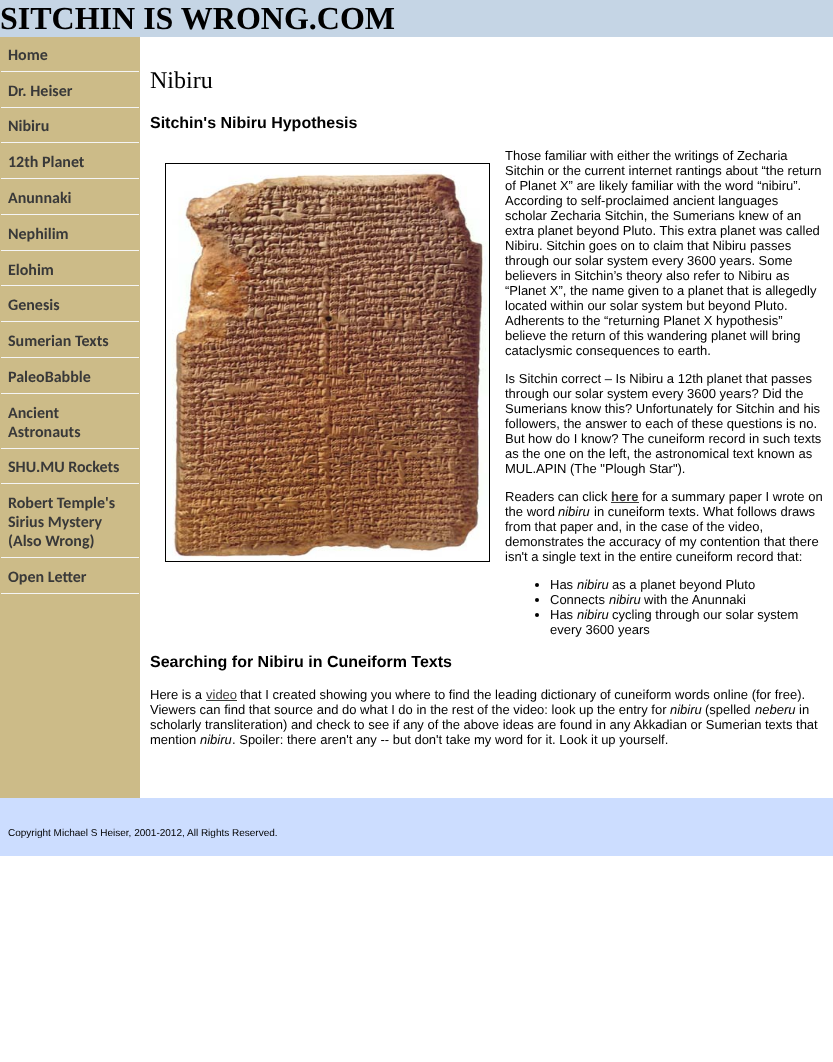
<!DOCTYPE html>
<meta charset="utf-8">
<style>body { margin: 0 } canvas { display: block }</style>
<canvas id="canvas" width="833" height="1062"></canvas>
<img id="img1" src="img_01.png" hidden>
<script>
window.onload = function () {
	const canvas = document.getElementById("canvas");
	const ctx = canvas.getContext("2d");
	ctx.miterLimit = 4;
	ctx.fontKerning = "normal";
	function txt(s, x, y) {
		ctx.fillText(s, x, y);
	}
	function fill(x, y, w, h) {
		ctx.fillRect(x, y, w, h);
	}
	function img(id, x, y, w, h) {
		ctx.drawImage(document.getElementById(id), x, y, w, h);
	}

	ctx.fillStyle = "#FFFFFF";
	fill(0, 0, 833, 1062);
	ctx.fillStyle = "#CCBB88";
	fill(0, 37, 140, 761);
	ctx.fillStyle = "#C5D5E5";
	fill(0, 0, 833, 37);
	ctx.fillStyle = "#F5F5F5";
	fill(1, 71, 138, 1);
	fill(1, 107, 138, 1);
	fill(1, 142, 138, 1);
	fill(1, 178, 138, 1);
	fill(1, 214, 138, 1);
	fill(1, 250, 138, 1);
	fill(1, 285, 138, 1);
	fill(1, 321, 138, 1);
	fill(1, 357, 138, 1);
	fill(1, 393, 138, 1);
	fill(1, 448, 138, 1);
	fill(1, 483, 138, 1);
	fill(1, 557, 138, 1);
	fill(1, 593, 138, 1);
	ctx.strokeStyle = "#000000";
	ctx.strokeRect(165.5, 163.5, 324, 398);
	img("img1", 166, 169, 323, 392);
	ctx.fillStyle = "#393939";
	fill(611, 502, 28, 1);
	ctx.fillStyle = "#000000";
	ctx.beginPath();
	ctx.arc(537, 585, 2, 0, Math.PI * 2);
	ctx.fill();
	ctx.beginPath();
	ctx.arc(537, 600, 2, 0, Math.PI * 2);
	ctx.fill();
	ctx.beginPath();
	ctx.arc(537, 615, 2, 0, Math.PI * 2);
	ctx.fill();
	ctx.fillStyle = "#393939";
	fill(206, 700, 31, 1);
	ctx.fillStyle = "#CCDDFF";
	fill(0, 798, 833, 58);
	ctx.font = "bold 32px Liberation Serif";
	ctx.fillStyle = "#000000";
	txt("SITCHIN IS WRONG.COM", 0, 29);
	ctx.font = "bold 16px Carlito";
	ctx.fillStyle = "#393939";
	txt("Home", 8, 60);
	txt("Dr. Heiser", 8, 96);
	txt("Nibiru", 8, 131);
	txt("12th Planet", 8, 167);
	txt("Anunnaki", 8, 203);
	txt("Nephilim", 8, 239);
	txt("Elohim", 8, 275);
	txt("Genesis", 8, 310);
	txt("Sumerian Texts", 8, 346);
	txt("PaleoBabble", 8, 382);
	txt("Ancient", 8, 418);
	txt("Astronauts", 8, 437);
	txt("SHU.MU Rockets", 8, 472);
	txt("Robert Temple's", 8, 508);
	txt("Sirius Mystery", 8, 527);
	txt("(Also Wrong)", 8, 546);
	txt("Open Letter", 8, 582);
	ctx.font = "24px Liberation Serif";
	ctx.fillStyle = "#000000";
	txt("Nibiru", 150, 88);
	ctx.font = "bold 16px Liberation Sans";
	txt("Sitchin's Nibiru Hypothesis", 150, 128);
	ctx.font = "13px Liberation Sans";
	txt("Those familiar with either the writings of Zecharia", 505, 160);
	txt("Sitchin or the current internet rantings about “the return", 505, 175);
	txt("of Planet X” are likely familiar with the word “nibiru”.", 505, 190);
	txt("According to self-proclaimed ancient languages", 505, 205);
	txt("scholar Zecharia Sitchin, the Sumerians knew of an", 505, 220);
	txt("extra planet beyond Pluto. This extra planet was called", 505, 235);
	txt("Nibiru. Sitchin goes on to claim that Nibiru passes", 505, 250);
	txt("through our solar system every 3600 years. Some", 505, 265);
	txt("believers in Sitchin’s theory also refer to Nibiru as", 505, 280);
	txt("“Planet X”, the name given to a planet that is allegedly", 505, 295);
	txt("located within our solar system but beyond Pluto.", 505, 310);
	txt("Adherents to the “returning Planet X hypothesis”", 505, 325);
	txt("believe the return of this wandering planet will bring", 505, 340);
	txt("cataclysmic consequences to earth.", 505, 355);
	txt("Is Sitchin correct – Is Nibiru a 12th planet that passes", 505, 383);
	txt("through our solar system every 3600 years? Did the", 505, 398);
	txt("Sumerians know this? Unfortunately for Sitchin and his", 505, 413);
	txt("followers, the answer to each of these questions is no.", 505, 428);
	txt("But how do I know? The cuneiform record in such texts", 505, 443);
	txt("as the one on the left, the astronomical text known as", 505, 458);
	txt("MUL.APIN (The \"Plough Star\").", 505, 473);
	txt("Readers can click", 505, 501);
	ctx.font = "bold 13px Liberation Sans";
	ctx.fillStyle = "#393939";
	txt("here", 611, 501);
	ctx.font = "13px Liberation Sans";
	ctx.fillStyle = "#000000";
	txt("for a summary paper I wrote on", 642, 501);
	txt("the word", 505, 516);
	ctx.font = "italic 13px Liberation Sans";
	txt("nibiru", 558, 516);
	ctx.font = "13px Liberation Sans";
	txt("in cuneiform texts. What follows draws", 594, 516);
	txt("from that paper and, in the case of the video,", 505, 531);
	txt("demonstrates the accuracy of my contention that there", 505, 546);
	txt("isn't a single text in the entire cuneiform record that:", 505, 561);
	txt("Has", 550, 589);
	ctx.font = "italic 13px Liberation Sans";
	txt("nibiru", 577, 589);
	ctx.font = "13px Liberation Sans";
	txt("as a planet beyond Pluto", 612, 589);
	txt("Connects", 550, 604);
	ctx.font = "italic 13px Liberation Sans";
	txt("nibiru", 609, 604);
	ctx.font = "13px Liberation Sans";
	txt("with the Anunnaki", 644, 604);
	txt("Has", 550, 619);
	ctx.font = "italic 13px Liberation Sans";
	txt("nibiru", 577, 619);
	ctx.font = "13px Liberation Sans";
	txt("cycling through our solar system", 612, 619);
	txt("every 3600 years", 550, 634);
	ctx.font = "bold 16px Liberation Sans";
	txt("Searching for Nibiru in Cuneiform Texts", 150, 667);
	ctx.font = "13px Liberation Sans";
	txt("Here is a", 150, 699);
	ctx.fillStyle = "#393939";
	txt("video", 206, 699);
	ctx.fillStyle = "#000000";
	txt("that I created showing you where to find the leading dictionary of cuneiform words online (for free).", 240, 699);
	txt("Viewers can find that source and do what I do in the rest of the video: look up the entry for", 150, 714);
	ctx.font = "italic 13px Liberation Sans";
	txt("nibiru", 670, 714);
	ctx.font = "13px Liberation Sans";
	txt("(spelled", 705, 714);
	ctx.font = "italic 13px Liberation Sans";
	txt("neberu", 755, 714);
	ctx.font = "13px Liberation Sans";
	txt("in", 799, 714);
	txt("scholarly transliteration) and check to see if any of the above ideas are found in any Akkadian or Sumerian texts that", 150, 729);
	txt("mention", 150, 744);
	ctx.font = "italic 13px Liberation Sans";
	txt("nibiru", 200, 744);
	ctx.font = "13px Liberation Sans";
	txt(". Spoiler: there aren't any -- but don't take my word for it. Look it up yourself.", 232, 744);
	ctx.font = "10px Liberation Sans";
	txt("Copyright Michael S Heiser, 2001-2012, All Rights Reserved.", 8, 836);
};
</script>
